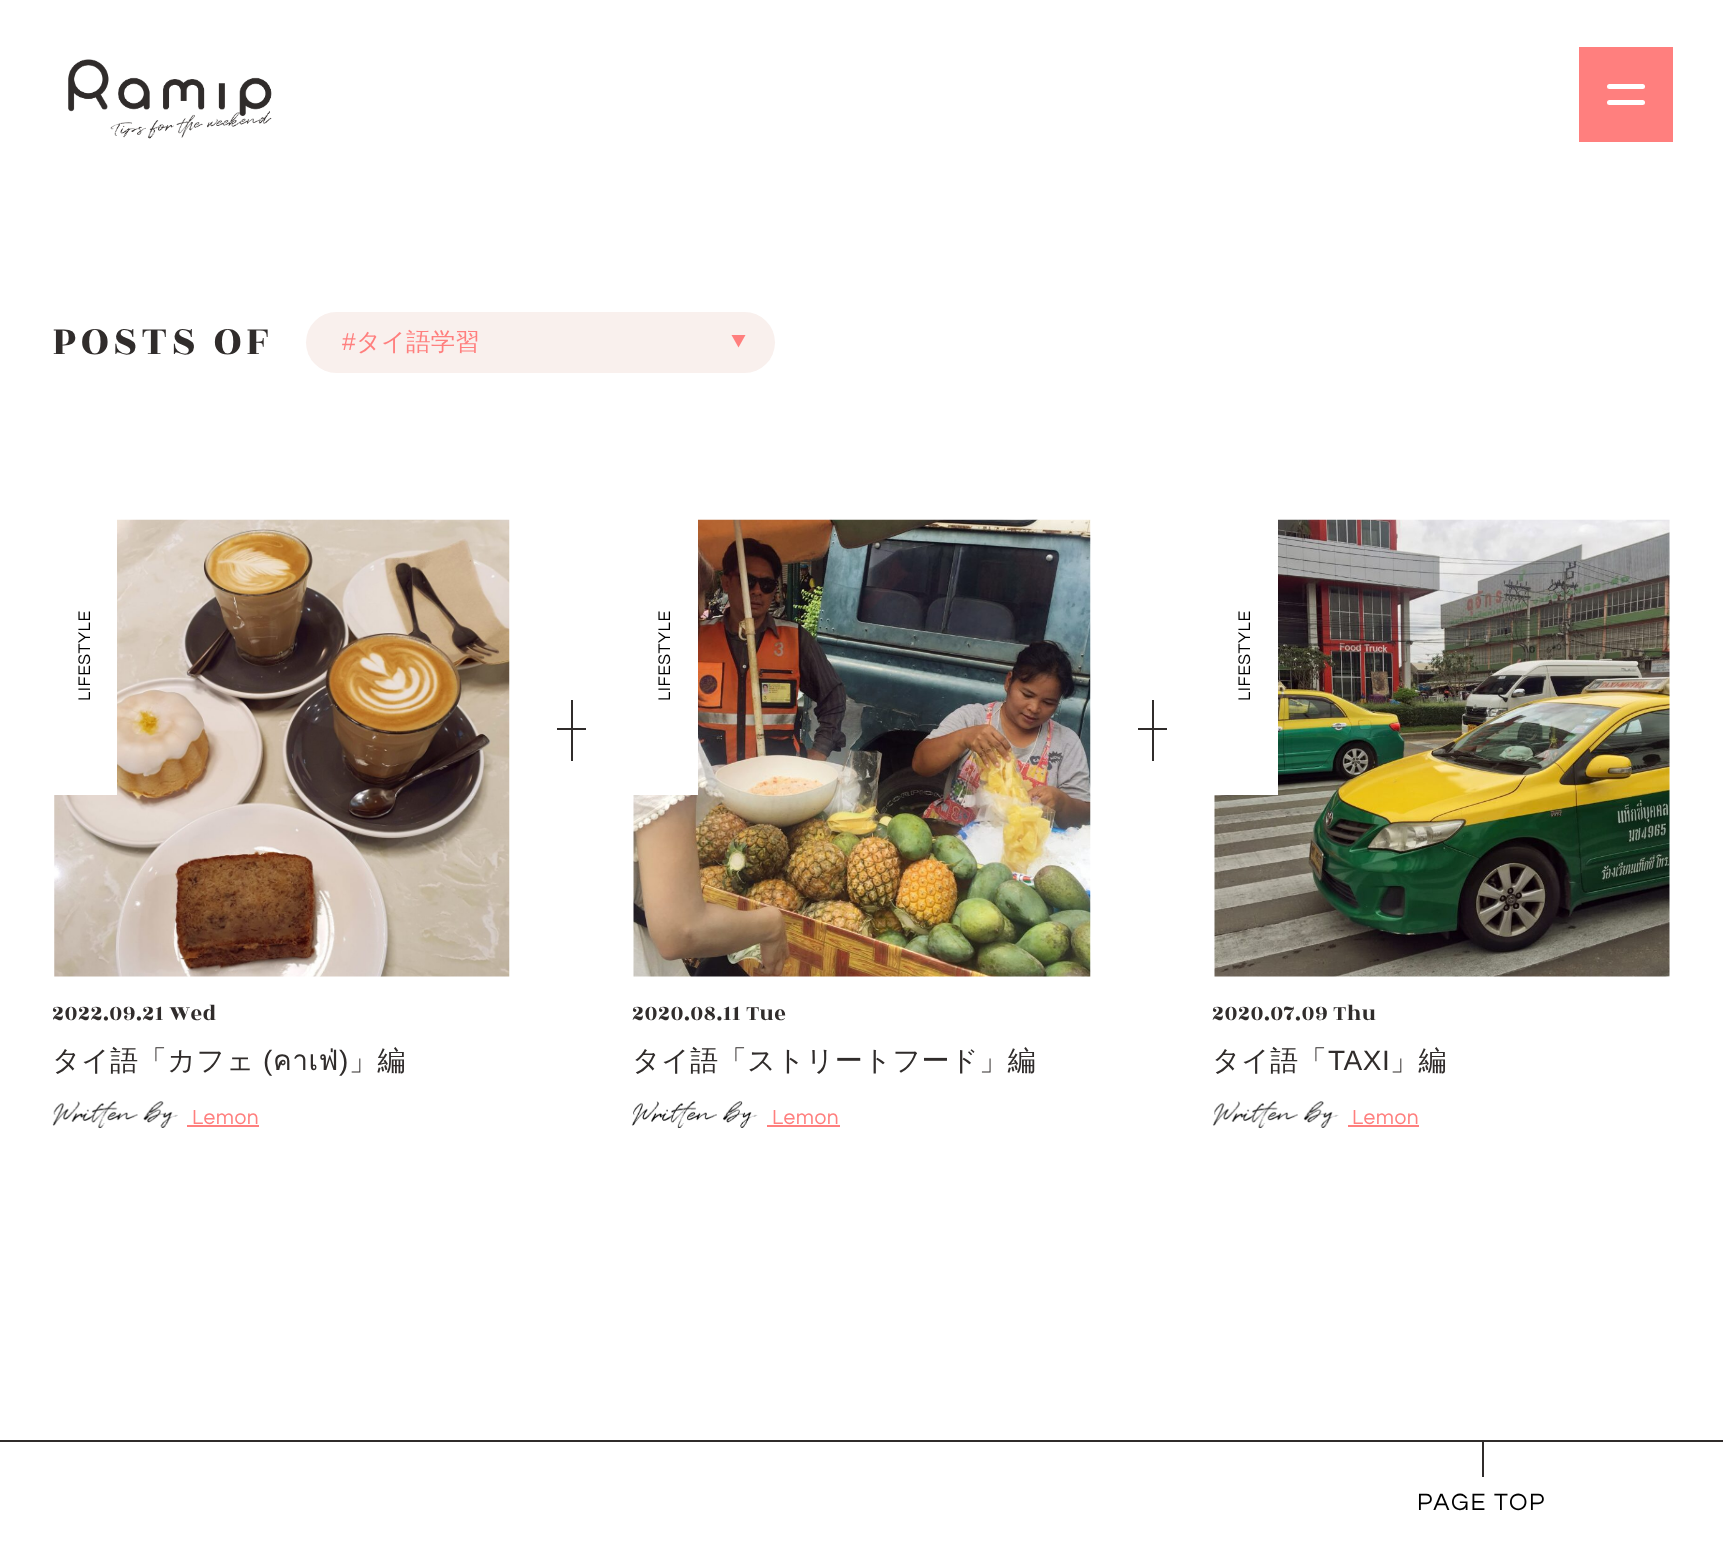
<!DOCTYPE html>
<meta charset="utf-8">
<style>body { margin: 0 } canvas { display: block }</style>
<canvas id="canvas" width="1723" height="1559"></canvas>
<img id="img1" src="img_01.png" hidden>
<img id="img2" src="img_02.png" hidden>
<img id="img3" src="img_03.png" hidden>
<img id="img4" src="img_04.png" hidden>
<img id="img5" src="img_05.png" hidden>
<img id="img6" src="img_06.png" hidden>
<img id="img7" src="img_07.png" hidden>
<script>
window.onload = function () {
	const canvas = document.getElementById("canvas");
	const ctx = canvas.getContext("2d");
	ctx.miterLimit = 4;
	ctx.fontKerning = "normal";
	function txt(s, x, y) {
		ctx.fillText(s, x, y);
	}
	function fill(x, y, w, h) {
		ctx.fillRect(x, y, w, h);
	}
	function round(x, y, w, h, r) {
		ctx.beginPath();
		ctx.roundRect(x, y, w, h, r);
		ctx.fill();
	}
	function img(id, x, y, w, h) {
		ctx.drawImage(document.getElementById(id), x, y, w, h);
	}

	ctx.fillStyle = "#FFFFFF";
	fill(0, 0, 1723, 1559);
	img("img1", 68, 59, 204, 80);
	ctx.fillStyle = "#FF7F7E";
	fill(1579, 47, 94, 95);
	ctx.fillStyle = "#FFFFFF";
	round(1607, 84, 38, 5, 2.5);
	round(1607, 100, 38, 5, 2.5);
	ctx.fillStyle = "#F9F0ED";
	round(306, 312, 469, 61, 30.5);
	ctx.fillStyle = "#FF7F7E";
	ctx.beginPath();
	ctx.moveTo(731.5, 335);
	ctx.lineTo(745.5, 335);
	ctx.lineTo(738.5, 347.5);
	ctx.closePath();
	ctx.fill();
	img("img2", 54, 519, 456, 458);
	ctx.fillStyle = "#FFFFFF";
	fill(54, 519, 63, 276);
	img("img3", 52, 1101, 126, 28);
	ctx.fillStyle = "#FF7F7E";
	fill(187, 1125, 72, 2);
	ctx.fillStyle = "#302C2B";
	fill(571, 700, 2, 61);
	fill(557, 728, 29, 2);
	img("img4", 633, 519, 458, 458);
	ctx.fillStyle = "#FFFFFF";
	fill(633, 519, 65, 276);
	img("img5", 631, 1101, 127, 28);
	ctx.fillStyle = "#FF7F7E";
	fill(767, 1125, 73, 2);
	ctx.fillStyle = "#302C2B";
	fill(1152, 700, 2, 61);
	fill(1138, 728, 29, 2);
	img("img6", 1214, 519, 456, 458);
	ctx.fillStyle = "#FFFFFF";
	fill(1214, 519, 64, 276);
	img("img7", 1212, 1101, 127, 28);
	ctx.fillStyle = "#FF7F7E";
	fill(1348, 1125, 71, 2);
	ctx.fillStyle = "#302C2B";
	fill(0, 1440, 1723, 2);
	fill(1482, 1442, 2, 35);
	ctx.letterSpacing = "4.5px";
	ctx.font = "43.75px Rozha One";
	txt("POSTS OF", 52, 354);
	ctx.letterSpacing = "0px";
	ctx.font = "24.5px Liberation Sans";
	ctx.fillStyle = "#FF7F7E";
	txt("#", 342, 350);
	ctx.font = "500 24.5px WenQuanYi Zen Hei";
	txt("タイ語学習", 356, 350);
	ctx.letterSpacing = "0.5px";
	ctx.font = "17.5px Questrial";
	ctx.fillStyle = "#000000";
	ctx.save();
	ctx.translate(90, 701);
	ctx.rotate(-90 * Math.PI / 180);
	ctx.fillText("LIFESTYLE", 0, 0);
	ctx.restore();
	ctx.save();
	ctx.beginPath();
	ctx.rect(53, 518, 1618, 620);
	ctx.clip();
	ctx.font = "22.75px Rozha One";
	ctx.fillStyle = "#302C2B";
	txt("2022.09.21 Wed", 52, 1020);
	ctx.restore();
	ctx.font = "500 28px WenQuanYi Zen Hei";
	ctx.fillStyle = "#302C2B";
	txt("タイ語「カフェ", 52, 1070);
	ctx.font = "28px Liberation Sans";
	txt("(", 263, 1070);
	ctx.font = "28px Loma";
	txt("คาเฟ่", 273, 1070);
	ctx.font = "28px Liberation Sans";
	txt(")", 339, 1070);
	ctx.font = "500 28px WenQuanYi Zen Hei";
	txt("」編", 349, 1070);
	ctx.font = "21px Questrial";
	ctx.fillStyle = "#FF7F7E";
	txt("Lemon", 192, 1124);
	ctx.font = "17.5px Questrial";
	ctx.fillStyle = "#000000";
	ctx.save();
	ctx.translate(670, 701);
	ctx.rotate(-90 * Math.PI / 180);
	ctx.fillText("LIFESTYLE", 0, 0);
	ctx.restore();
	ctx.font = "22.75px Rozha One";
	ctx.fillStyle = "#302C2B";
	txt("2020.08.11 Tue", 632, 1020);
	ctx.font = "500 28px WenQuanYi Zen Hei";
	txt("タイ語「ストリートフード」編", 632, 1070);
	ctx.font = "21px Questrial";
	ctx.fillStyle = "#FF7F7E";
	txt("Lemon", 772, 1124);
	ctx.font = "17.5px Questrial";
	ctx.fillStyle = "#000000";
	ctx.save();
	ctx.translate(1250, 701);
	ctx.rotate(-90 * Math.PI / 180);
	ctx.fillText("LIFESTYLE", 0, 0);
	ctx.restore();
	ctx.font = "22.75px Rozha One";
	ctx.fillStyle = "#302C2B";
	txt("2020.07.09 Thu", 1212, 1020);
	ctx.font = "500 28px WenQuanYi Zen Hei";
	txt("タイ語「", 1212, 1070);
	ctx.font = "28px Liberation Sans";
	txt("TAXI", 1328, 1070);
	ctx.font = "500 28px WenQuanYi Zen Hei";
	txt("」編", 1390, 1070);
	ctx.font = "21px Questrial";
	ctx.fillStyle = "#FF7F7E";
	txt("Lemon", 1352, 1124);
	ctx.letterSpacing = "1.75px";
	ctx.font = "24.5px Questrial";
	ctx.fillStyle = "#000000";
	txt("PAGE TOP", 1417, 1510);
};
</script>
